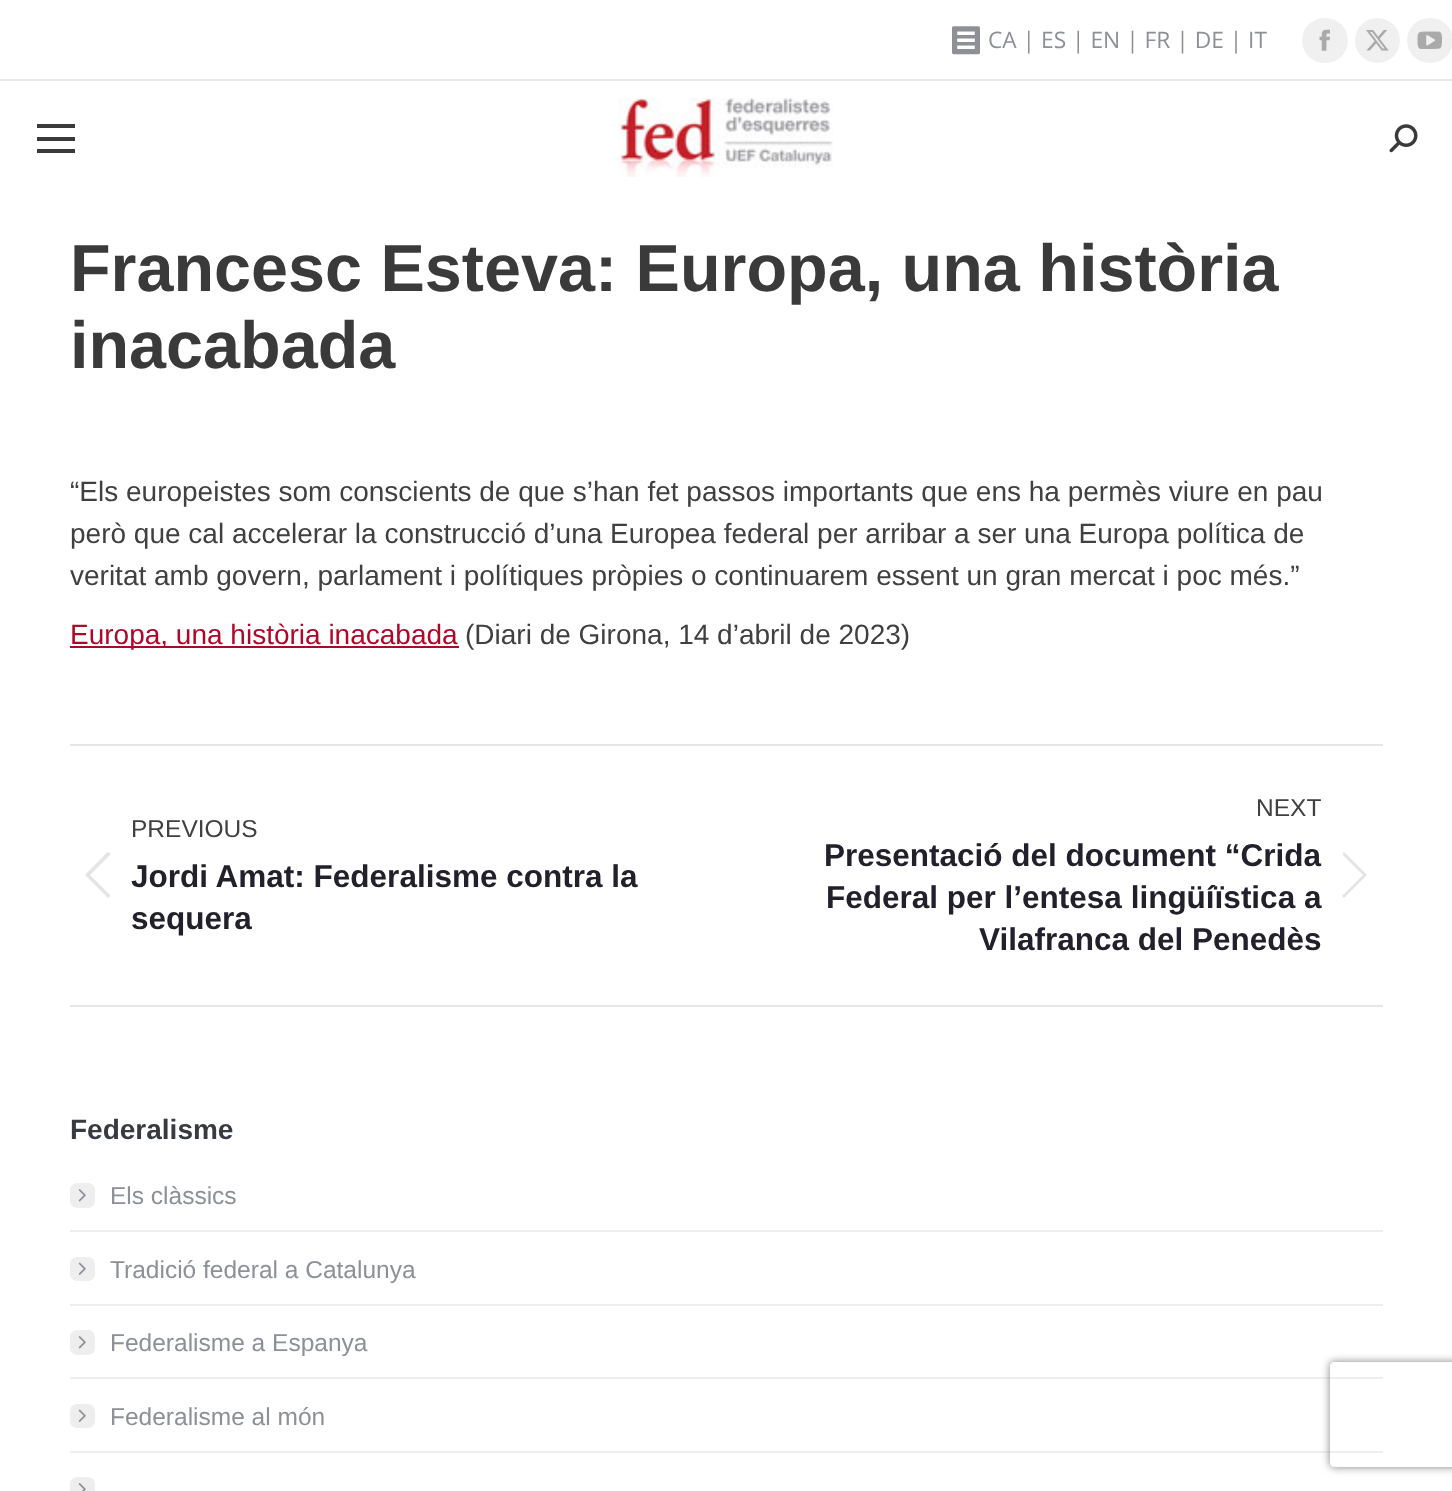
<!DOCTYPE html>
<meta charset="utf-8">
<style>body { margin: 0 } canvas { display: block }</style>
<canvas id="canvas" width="1452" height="1491"></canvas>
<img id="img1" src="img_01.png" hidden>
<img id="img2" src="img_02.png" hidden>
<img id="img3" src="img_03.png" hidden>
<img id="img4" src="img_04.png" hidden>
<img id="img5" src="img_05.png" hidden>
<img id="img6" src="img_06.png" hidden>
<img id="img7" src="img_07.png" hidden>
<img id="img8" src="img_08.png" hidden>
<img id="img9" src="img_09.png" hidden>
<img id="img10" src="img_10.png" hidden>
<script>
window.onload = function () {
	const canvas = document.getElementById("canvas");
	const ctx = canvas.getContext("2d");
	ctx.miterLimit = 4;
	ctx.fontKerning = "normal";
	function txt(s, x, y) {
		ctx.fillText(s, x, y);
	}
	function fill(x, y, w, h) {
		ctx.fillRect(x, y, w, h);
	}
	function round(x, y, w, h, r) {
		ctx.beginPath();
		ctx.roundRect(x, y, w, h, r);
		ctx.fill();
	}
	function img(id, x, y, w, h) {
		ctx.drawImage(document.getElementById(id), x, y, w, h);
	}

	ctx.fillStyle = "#FFFFFF";
	fill(0, 0, 1452, 1491);
	img("img1", 952, 26, 28, 29);
	ctx.fillStyle = "#F0F0F0";
	round(1302, 18, 46, 45, 22.5);
	img("img2", 1319, 29, 11, 22);
	ctx.beginPath();
	ctx.arc(1377.5, 40.5, 22.5, 0, Math.PI * 2);
	ctx.fill();
	img("img3", 1366, 30, 23, 21);
	round(1407, 18, 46, 45, 22.5);
	img("img4", 1417, 31, 25, 18);
	ctx.fillStyle = "#EAEAEA";
	fill(0, 79, 1452, 2);
	ctx.fillStyle = "#3A3A3A";
	fill(37, 124, 38, 4);
	fill(37, 137, 38, 4);
	fill(37, 149, 38, 4);
	img("img5", 617, 98, 216, 79);
	img("img6", 1389, 124, 29, 29);
	ctx.fillStyle = "#AE0829";
	fill(70, 646, 389, 2);
	ctx.fillStyle = "#E6E6E6";
	fill(70, 744, 1313, 2);
	fill(70, 1005, 1313, 2);
	img("img7", 85, 852, 26, 46);
	ctx.fillStyle = "#E4E4E6";
	ctx.beginPath();
	ctx.moveTo(1343, 853);
	ctx.bezierCurveTo(1343, 852, 1344, 852, 1345, 853);
	ctx.lineTo(1366, 874);
	ctx.bezierCurveTo(1367, 874, 1367, 875, 1366, 876);
	ctx.lineTo(1345, 897);
	ctx.bezierCurveTo(1344, 898, 1343, 898, 1343, 897);
	ctx.bezierCurveTo(1342, 896, 1342, 895, 1343, 895);
	ctx.lineTo(1363, 875);
	ctx.lineTo(1343, 855);
	ctx.closePath();
	ctx.fill();
	ctx.fillStyle = "#EEEEEF";
	round(70, 1183, 25, 25, 7);
	img("img8", 78, 1189, 8, 13);
	fill(70, 1230, 1313, 2);
	round(70, 1257, 25, 24, 7);
	img("img9", 78, 1262, 8, 13);
	fill(70, 1304, 1313, 2);
	round(70, 1330, 25, 25, 7);
	img("img8", 78, 1336, 8, 13);
	ctx.save();
	ctx.beginPath();
	ctx.moveTo(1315, 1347);
	ctx.lineTo(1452, 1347);
	ctx.lineTo(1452, 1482);
	ctx.lineTo(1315, 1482);
	ctx.closePath();
	ctx.moveTo(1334, 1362);
	ctx.lineTo(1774, 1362);
	ctx.bezierCurveTo(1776, 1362, 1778, 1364, 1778, 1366);
	ctx.lineTo(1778, 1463);
	ctx.bezierCurveTo(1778, 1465, 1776, 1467, 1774, 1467);
	ctx.lineTo(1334, 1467);
	ctx.bezierCurveTo(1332, 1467, 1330, 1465, 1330, 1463);
	ctx.lineTo(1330, 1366);
	ctx.bezierCurveTo(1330, 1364, 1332, 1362, 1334, 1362);
	ctx.closePath();
	ctx.clip("evenodd");
	ctx.fillStyle = "#808080";
	ctx.filter = "blur(4.5px)";
	ctx.beginPath();
	ctx.roundRect(1330, 1362, 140, 105, 4);
	ctx.fill();
	ctx.filter = "none";
	ctx.restore();
	ctx.fillStyle = "rgba(141, 144, 149, 0.15)";
	fill(70, 1377, 1313, 2);
	ctx.fillStyle = "#EEEEEF";
	round(70, 1404, 25, 24, 7);
	img("img9", 78, 1409, 8, 13);
	ctx.fillStyle = "rgba(141, 144, 149, 0.15)";
	fill(70, 1451, 1313, 2);
	ctx.fillStyle = "#EEEEEF";
	round(70, 1477, 25, 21, 7);
	img("img10", 78, 1483, 8, 8);
	ctx.font = "22.75px Open Sans";
	ctx.fillStyle = "#8D9095";
	txt("CA | ES | EN | FR | DE | IT", 988, 48);
	ctx.font = "bold 66.5px Liberation Sans";
	ctx.fillStyle = "#3A3A3A";
	txt("Francesc Esteva: Europa, una història", 70, 291);
	txt("inacabada", 70, 368);
	ctx.font = "28px Liberation Sans";
	ctx.fillStyle = "#404042";
	txt("“Els europeistes som conscients de que s’han fet passos importants que ens ha permès viure en pau", 70, 501);
	txt("però que cal accelerar la construcció d’una Europea federal per arribar a ser una Europa política de", 70, 543);
	txt("veritat amb govern, parlament i polítiques pròpies o continuarem essent un gran mercat i poc més.”", 70, 585);
	ctx.fillStyle = "#AE0829";
	txt("Europa, una història inacabada", 70, 644);
	ctx.fillStyle = "#404042";
	txt("(Diari de Girona, 14 d’abril de 2023)", 465, 644);
	ctx.font = "24.5px Liberation Sans";
	txt("PREVIOUS", 131, 837);
	ctx.font = "bold 31.5px Liberation Sans";
	ctx.fillStyle = "#22202B";
	txt("Jordi Amat: Federalisme contra la", 131, 887);
	txt("sequera", 131, 929);
	ctx.font = "24.5px Liberation Sans";
	ctx.fillStyle = "#404042";
	txt("NEXT", 1256, 816);
	ctx.font = "bold 31.5px Liberation Sans";
	ctx.fillStyle = "#22202B";
	txt("Presentació del document “Crida", 824, 866);
	txt("Federal per l’entesa lingüíïstica a", 826, 908);
	txt("Vilafranca del Penedès", 979, 950);
	ctx.font = "bold 28px Liberation Sans";
	ctx.fillStyle = "#373A41";
	txt("Federalisme", 70, 1139);
	ctx.font = "24.5px Liberation Sans";
	ctx.fillStyle = "#8D9095";
	txt("Els clàssics", 110, 1204);
	txt("Tradició federal a Catalunya", 110, 1278);
	txt("Federalisme a Espanya", 110, 1351);
	txt("Federalisme al món", 110, 1425);
};
</script>
